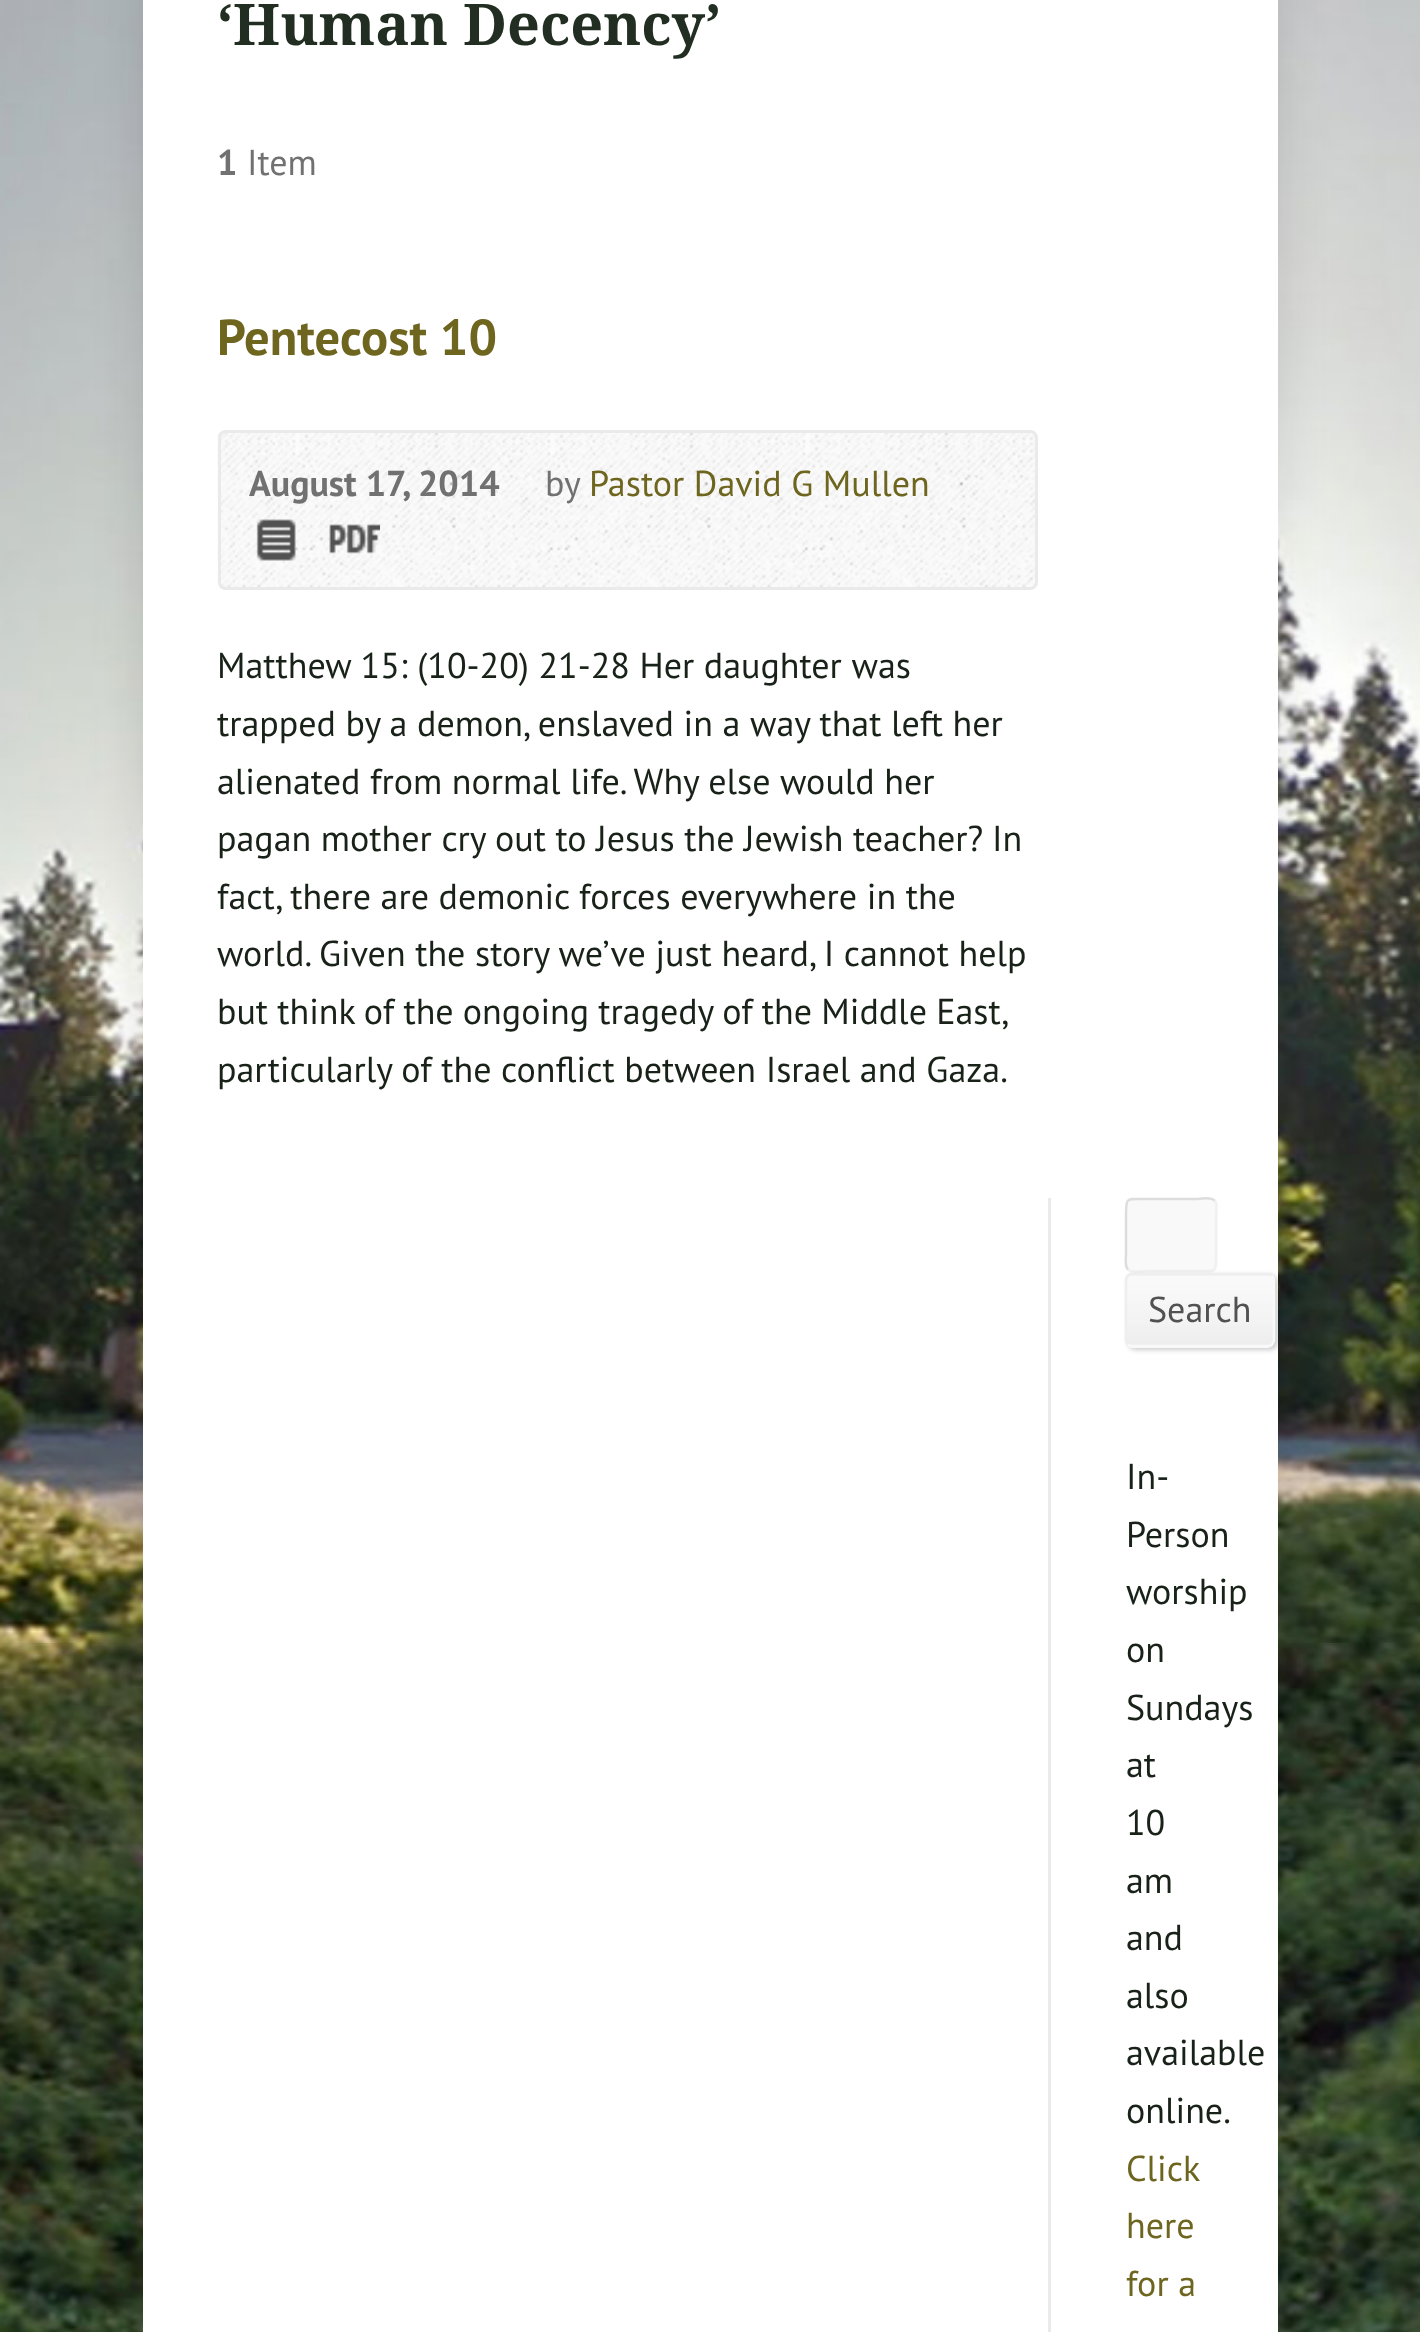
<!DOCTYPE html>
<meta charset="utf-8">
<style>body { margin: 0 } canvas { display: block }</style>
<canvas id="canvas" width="1420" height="2332"></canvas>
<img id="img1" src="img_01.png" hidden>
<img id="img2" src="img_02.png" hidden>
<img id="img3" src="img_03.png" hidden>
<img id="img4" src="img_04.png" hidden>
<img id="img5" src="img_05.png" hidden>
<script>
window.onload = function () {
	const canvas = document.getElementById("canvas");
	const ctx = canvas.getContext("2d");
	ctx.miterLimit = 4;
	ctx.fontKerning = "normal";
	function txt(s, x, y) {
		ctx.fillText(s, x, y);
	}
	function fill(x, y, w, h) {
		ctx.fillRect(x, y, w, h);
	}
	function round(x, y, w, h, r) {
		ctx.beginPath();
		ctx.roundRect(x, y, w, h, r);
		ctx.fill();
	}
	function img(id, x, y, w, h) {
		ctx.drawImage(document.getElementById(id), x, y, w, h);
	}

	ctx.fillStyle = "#FFFFFF";
	fill(0, 0, 1420, 2332);
	img("img1", 0, 0, 1420, 2332);
	ctx.fillStyle = "rgba(0, 0, 0, 0.12)";
	ctx.filter = "blur(25px)";
	ctx.beginPath();
	ctx.roundRect(143, -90, 1135, 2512, 15);
	ctx.fill();
	ctx.filter = "none";
	ctx.fillStyle = "#FFFFFF";
	fill(143, 0, 1135, 2332);
	img("img2", 217, 430, 821, 160);
	ctx.beginPath();
	ctx.roundRect(219.5, 431.5, 817, 157, 6.5);
	ctx.strokeStyle = "#EAEAEA";
	ctx.lineWidth = 3;
	ctx.stroke();
	img("img3", 256, 519, 40, 42);
	img("img4", 329, 524, 51, 30);
	ctx.fillStyle = "#EAEAEA";
	fill(1048, 1198, 3, 1134);
	ctx.fillStyle = "#F9F9F9";
	round(1125, 1198, 93, 75, 8);
	ctx.beginPath();
	ctx.moveTo(1214.5, 1200.5);
	ctx.bezierCurveTo(1218, 1204, 1216, 1212, 1216, 1215);
	ctx.lineTo(1216, 1255);
	ctx.bezierCurveTo(1216, 1273.5, 1216, 1271, 1197, 1271);
	ctx.lineTo(1145.5, 1271);
	ctx.bezierCurveTo(1143, 1271, 1132, 1273.5, 1128, 1269.5);
	ctx.strokeStyle = "#F1F1F1";
	ctx.lineWidth = 2.5;
	ctx.stroke();
	ctx.beginPath();
	ctx.moveTo(1128, 1269.5);
	ctx.bezierCurveTo(1124.5, 1266, 1126, 1258, 1126, 1255);
	ctx.lineTo(1126, 1215);
	ctx.bezierCurveTo(1126, 1196.5, 1126.5, 1199, 1145.5, 1199);
	ctx.lineTo(1197, 1199);
	ctx.bezierCurveTo(1199.5, 1199, 1210.5, 1196.5, 1214.5, 1200.5);
	ctx.strokeStyle = "#DDDDDD";
	ctx.stroke();
	ctx.fillStyle = "rgba(0, 0, 0, 0.2)";
	ctx.filter = "blur(2.5px)";
	ctx.beginPath();
	ctx.roundRect(1128, 1275, 150, 75, 8);
	ctx.fill();
	ctx.filter = "none";
	ctx.fillStyle = "#F9F9F9";
	round(1125, 1273, 150, 75, 8);
	img("img5", 1125, 1273, 150, 74);
	ctx.beginPath();
	ctx.moveTo(1272, 1275.5);
	ctx.bezierCurveTo(1273, 1277, 1274, 1278.5, 1274, 1280);
	ctx.lineTo(1274, 1340);
	ctx.bezierCurveTo(1274, 1341.5, 1273, 1343, 1272, 1344.5);
	ctx.bezierCurveTo(1270.5, 1345.5, 1269, 1346, 1267.5, 1346);
	ctx.lineTo(1132.5, 1346);
	ctx.bezierCurveTo(1131, 1346, 1129.5, 1345.5, 1128, 1344.5);
	ctx.strokeStyle = "#F9F9F9";
	ctx.stroke();
	ctx.beginPath();
	ctx.moveTo(1128, 1344.5);
	ctx.bezierCurveTo(1127, 1343, 1126, 1341.5, 1126, 1340);
	ctx.lineTo(1126, 1280);
	ctx.bezierCurveTo(1126, 1278.5, 1127, 1277, 1128, 1275.5);
	ctx.bezierCurveTo(1129.5, 1274.5, 1131, 1274, 1132.5, 1274);
	ctx.lineTo(1267.5, 1274);
	ctx.bezierCurveTo(1269, 1274, 1270.5, 1274.5, 1272, 1275.5);
	ctx.strokeStyle = "#EEEEEE";
	ctx.stroke();
	ctx.font = "bold 57.5px Droid Serif";
	ctx.fillStyle = "#222E21";
	txt("‘Human Decency’", 217, 45);
	ctx.font = "bold 36px PT Sans";
	ctx.fillStyle = "#717171";
	txt("1", 217, 175);
	ctx.font = "36px PT Sans";
	txt("Item", 247, 175);
	ctx.font = "bold 50.5px PT Sans";
	ctx.fillStyle = "#6E651F";
	txt("Pentecost 10", 217, 355);
	ctx.font = "bold 36px PT Sans";
	ctx.fillStyle = "#717171";
	txt("August 17, 2014", 249, 496);
	ctx.font = "36px PT Sans";
	txt("by", 545, 496);
	ctx.fillStyle = "#6E651F";
	txt("Pastor David G Mullen", 589, 496);
	ctx.fillStyle = "#192218";
	txt("Matthew 15: (10-20) 21-28 Her daughter was", 217, 678);
	txt("trapped by a demon, enslaved in a way that left her", 217, 736);
	txt("alienated from normal life. Why else would her", 217, 794);
	txt("pagan mother cry out to Jesus the Jewish teacher?", 217, 851);
	txt("In", 992, 851);
	txt("fact, there are demonic forces everywhere in the", 217, 909);
	txt("world. Given the story we’ve just heard, I cannot help", 217, 966);
	ctx.wordSpacing = "-0.4px";
	txt("but think of the ongoing tragedy of the Middle East,", 217, 1024);
	ctx.wordSpacing = "0px";
	txt("particularly of the conflict between Israel and Gaza.", 217, 1082);
	ctx.fillStyle = "#515151";
	txt("Search", 1148, 1322);
	ctx.fillStyle = "#192218";
	txt("In-", 1126, 1489);
	txt("Person", 1126, 1547);
	txt("worship", 1126, 1604);
	txt("on", 1126, 1662);
	txt("Sundays", 1126, 1720);
	txt("at", 1126, 1777);
	txt("10", 1126, 1835);
	txt("am", 1126, 1893);
	txt("and", 1126, 1950);
	txt("also", 1126, 2008);
	txt("available", 1126, 2065);
	txt("online.", 1126, 2123);
	ctx.fillStyle = "#6E651F";
	txt("Click", 1126, 2181);
	txt("here", 1126, 2238);
	txt("for a", 1126, 2296);
};
</script>
